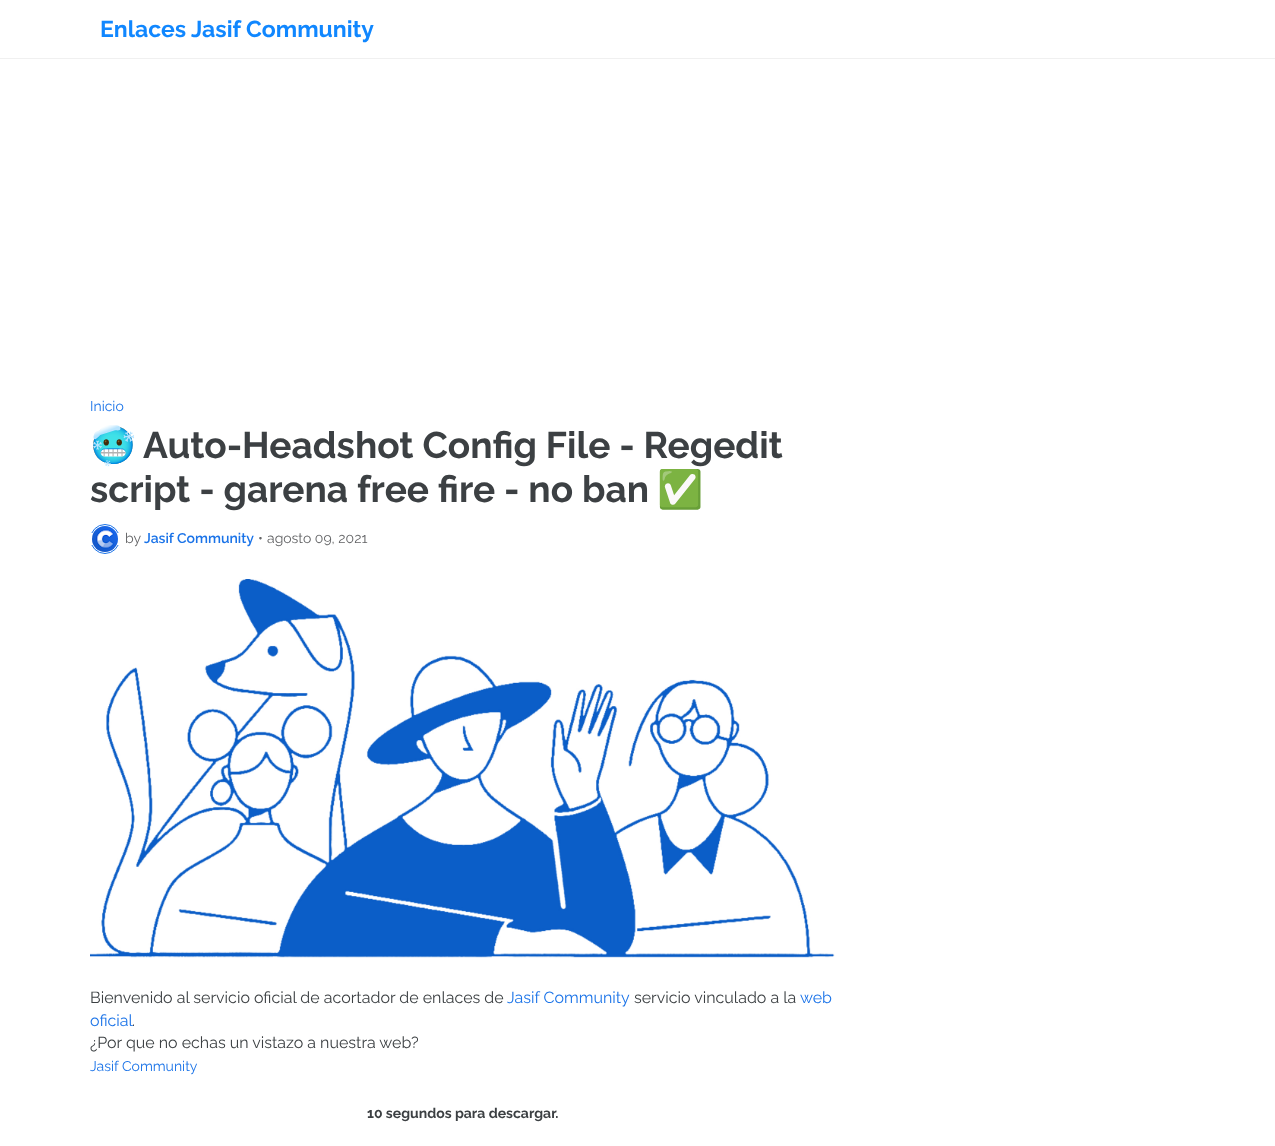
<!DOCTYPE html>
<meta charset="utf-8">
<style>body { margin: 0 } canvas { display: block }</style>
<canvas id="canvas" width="1275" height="1146"></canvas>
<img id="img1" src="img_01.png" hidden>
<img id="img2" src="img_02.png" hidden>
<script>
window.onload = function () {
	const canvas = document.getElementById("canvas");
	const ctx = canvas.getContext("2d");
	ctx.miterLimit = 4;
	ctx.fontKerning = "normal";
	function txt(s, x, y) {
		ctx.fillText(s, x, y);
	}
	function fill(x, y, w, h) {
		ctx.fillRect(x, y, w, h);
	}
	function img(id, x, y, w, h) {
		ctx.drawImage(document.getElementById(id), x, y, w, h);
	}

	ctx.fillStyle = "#FFFFFF";
	fill(0, 0, 1275, 1146);
	ctx.fillStyle = "#F0F0F0";
	fill(0, 58, 1275, 1);
	ctx.beginPath();
	ctx.arc(105, 539, 14.5, 0, Math.PI * 2);
	ctx.strokeStyle = "#1A73E8";
	ctx.stroke();
	ctx.fillStyle = "#FFFFFF";
	fill(90, 533, 30, 12);
	img("img1", 92, 526, 26, 26);
	img("img2", 90, 579, 745, 379);
	ctx.font = "bold 23px Raleway";
	ctx.fillStyle = "#1087FF";
	txt("Enlaces Jasif Community", 100, 37);
	ctx.font = "14px Raleway";
	ctx.fillStyle = "#1A73E8";
	txt("Inicio", 90, 411);
	ctx.font = "bold 37px Noto Color Emoji";
	ctx.fillStyle = "#3C4043";
	txt("🥶", 90, 458);
	ctx.font = "bold 37px Raleway";
	txt("Auto-Headshot Config File - Regedit", 143, 458);
	txt("script - garena free fire - no ban", 90, 502);
	ctx.font = "bold 37px Noto Color Emoji";
	txt("✅", 657, 502);
	ctx.font = "14px Raleway";
	ctx.fillStyle = "#636466";
	txt("by", 125, 543);
	ctx.font = "600 14px Raleway";
	ctx.fillStyle = "#1A73E8";
	txt("Jasif Community", 144, 543);
	ctx.font = "14px Raleway";
	ctx.fillStyle = "#636466";
	txt("•", 258, 543);
	txt("agosto 09, 2021", 267, 543);
	ctx.font = "16px Raleway";
	ctx.fillStyle = "#3C4043";
	txt("Bienvenido al servicio oficial de acortador de enlaces de", 90, 1003);
	ctx.fillStyle = "#1A73E8";
	txt("Jasif Community", 507, 1003);
	ctx.fillStyle = "#3C4043";
	txt("servicio vinculado a la", 634, 1003);
	ctx.fillStyle = "#1A73E8";
	txt("web", 800, 1003);
	txt("oficial", 90, 1026);
	ctx.fillStyle = "#3C4043";
	txt(".", 132, 1026);
	txt("¿Por que no echas un vistazo a nuestra web?", 90, 1048);
	ctx.font = "14px Raleway";
	ctx.fillStyle = "#1A73E8";
	txt("Jasif Community", 90, 1071);
	ctx.font = "bold 14px Raleway";
	ctx.fillStyle = "#3C4043";
	txt("10 segundos para descargar.", 367, 1118);
};
</script>
